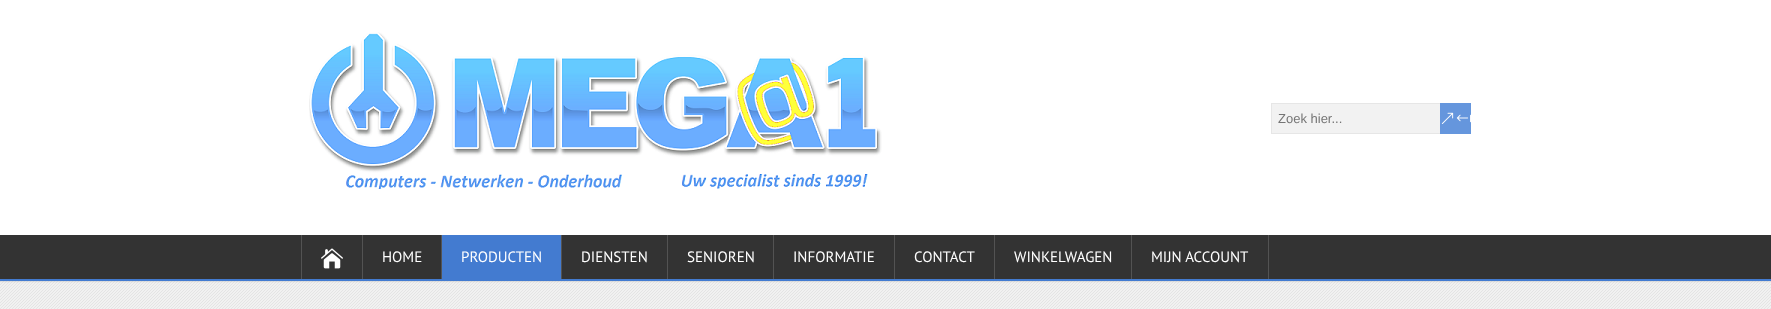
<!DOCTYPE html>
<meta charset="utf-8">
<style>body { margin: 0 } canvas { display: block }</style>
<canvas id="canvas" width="1771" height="309"></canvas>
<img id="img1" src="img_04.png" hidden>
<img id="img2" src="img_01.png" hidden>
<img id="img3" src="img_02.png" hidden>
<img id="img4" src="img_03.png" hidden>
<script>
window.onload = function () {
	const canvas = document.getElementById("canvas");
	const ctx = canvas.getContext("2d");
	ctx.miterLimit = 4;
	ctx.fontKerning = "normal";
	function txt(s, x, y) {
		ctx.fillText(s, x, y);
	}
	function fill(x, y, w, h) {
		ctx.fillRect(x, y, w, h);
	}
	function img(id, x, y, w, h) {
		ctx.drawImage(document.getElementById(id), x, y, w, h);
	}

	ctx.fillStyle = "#F1F1F1";
	fill(0, 0, 1771, 309);
	img("img1", 0, 281, 1771, 28);
	ctx.fillStyle = "#BBBBBB";
	ctx.filter = "blur(1px)";
	ctx.beginPath();
	ctx.rect(0, 0, 1771, 281);
	ctx.fill();
	ctx.filter = "none";
	ctx.fillStyle = "#FFFFFF";
	fill(0, 0, 1771, 235);
	img("img2", 309, 32, 573, 157);
	ctx.fillStyle = "#F2F2F2";
	fill(1272, 104, 168, 29);
	ctx.strokeStyle = "#E6E6E6";
	ctx.strokeRect(1271.5, 103.5, 199, 30);
	ctx.fillStyle = "#6596DD";
	fill(1440, 103, 31, 31);
	img("img3", 1441, 112, 30, 12);
	ctx.fillStyle = "#333333";
	fill(0, 235, 1771, 44);
	ctx.fillStyle = "#437BD0";
	fill(0, 279, 1771, 2);
	ctx.fillStyle = "#535353";
	fill(362, 235, 1, 44);
	fill(301, 235, 1, 44);
	img("img4", 321, 248, 22, 21);
	fill(441, 235, 1, 44);
	ctx.fillStyle = "#437BD0";
	fill(442, 235, 119, 44);
	ctx.fillStyle = "#535353";
	fill(561, 235, 1, 44);
	fill(667, 235, 1, 44);
	fill(773, 235, 1, 44);
	fill(894, 235, 1, 44);
	fill(994, 235, 1, 44);
	fill(1131, 235, 1, 44);
	fill(1268, 235, 1, 44);
	ctx.font = "13px Liberation Sans";
	ctx.fillStyle = "#757575";
	txt("Zoek hier...", 1278, 123);
	ctx.font = "15px PT Sans";
	ctx.fillStyle = "#FFFFFF";
	txt("HOME", 382, 262);
	txt("PRODUCTEN", 461, 262);
	txt("DIENSTEN", 581, 262);
	txt("SENIOREN", 687, 262);
	txt("INFORMATIE", 793, 262);
	txt("CONTACT", 914, 262);
	txt("WINKELWAGEN", 1014, 262);
	txt("MIJN ACCOUNT", 1151, 262);
};
</script>
